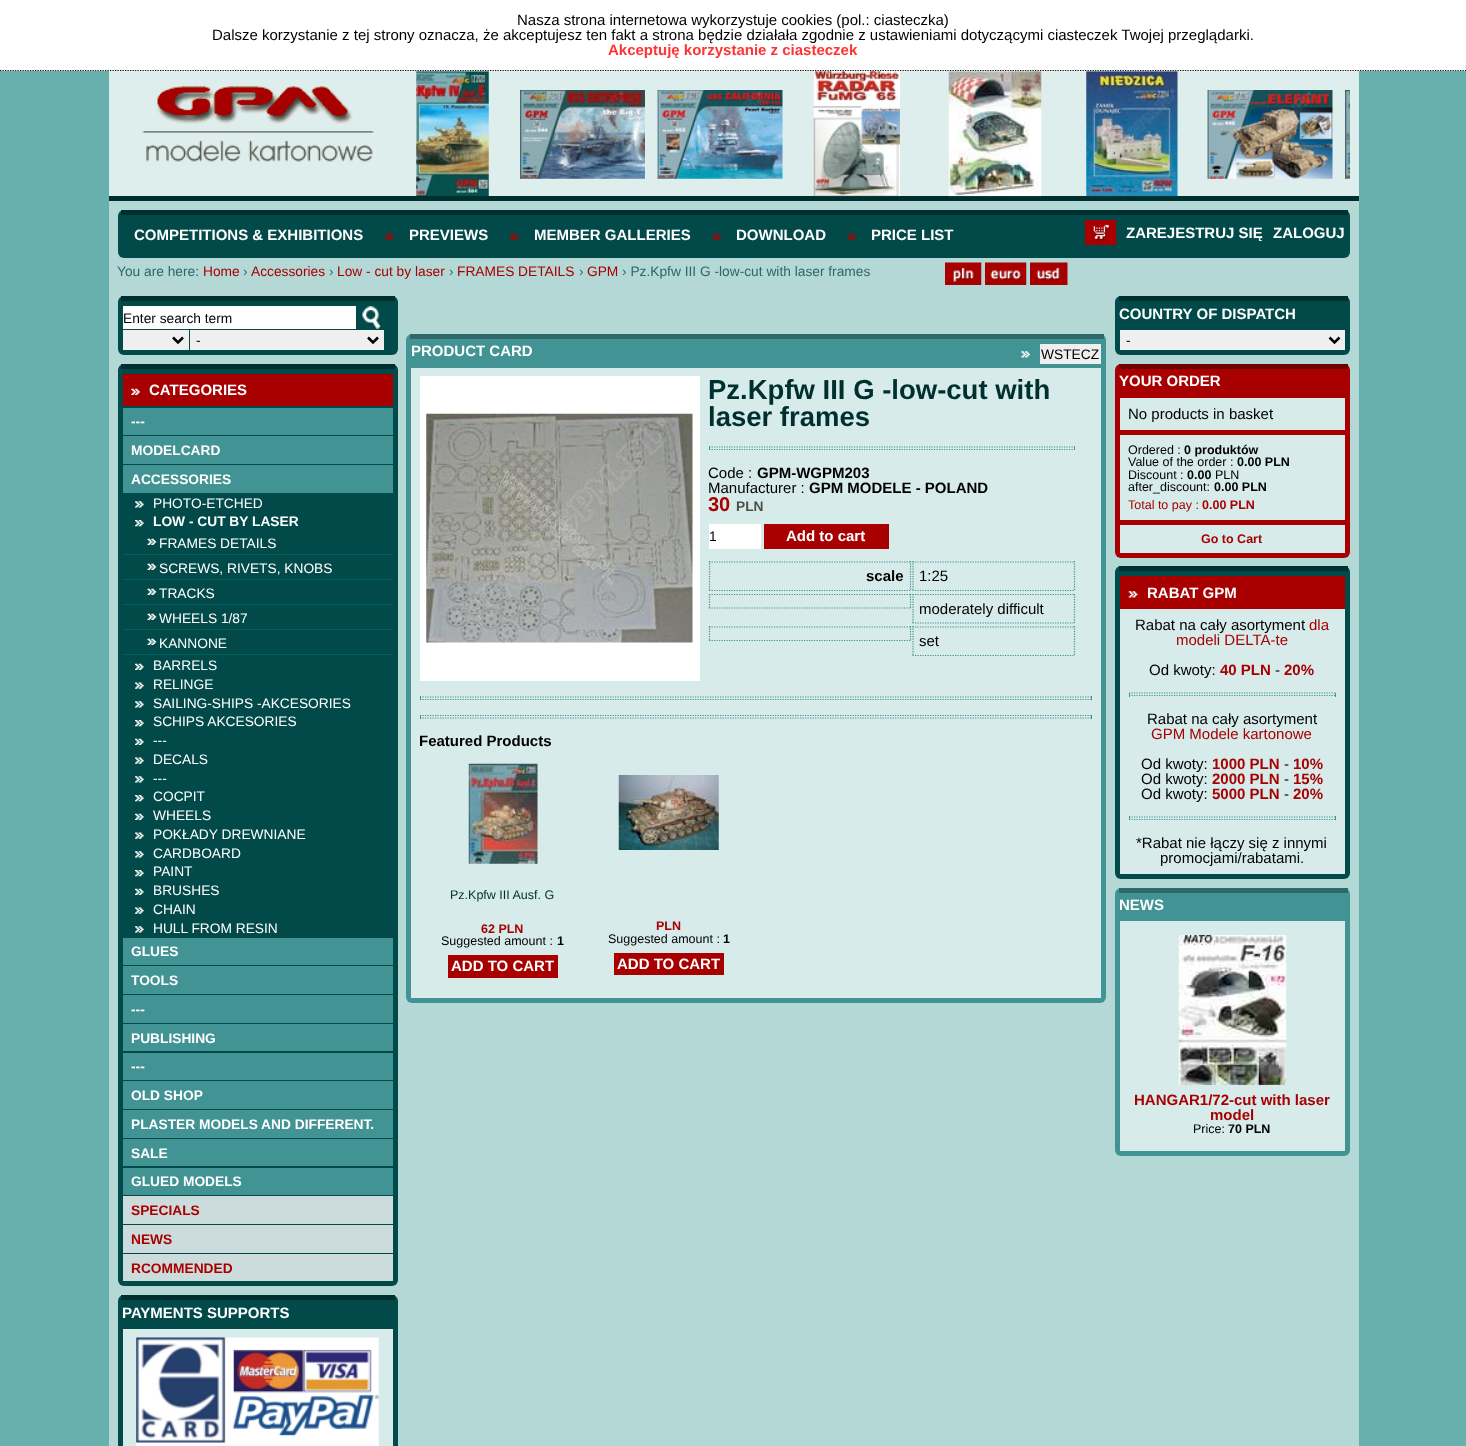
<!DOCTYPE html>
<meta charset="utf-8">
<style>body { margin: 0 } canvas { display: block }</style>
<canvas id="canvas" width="1466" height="1446"></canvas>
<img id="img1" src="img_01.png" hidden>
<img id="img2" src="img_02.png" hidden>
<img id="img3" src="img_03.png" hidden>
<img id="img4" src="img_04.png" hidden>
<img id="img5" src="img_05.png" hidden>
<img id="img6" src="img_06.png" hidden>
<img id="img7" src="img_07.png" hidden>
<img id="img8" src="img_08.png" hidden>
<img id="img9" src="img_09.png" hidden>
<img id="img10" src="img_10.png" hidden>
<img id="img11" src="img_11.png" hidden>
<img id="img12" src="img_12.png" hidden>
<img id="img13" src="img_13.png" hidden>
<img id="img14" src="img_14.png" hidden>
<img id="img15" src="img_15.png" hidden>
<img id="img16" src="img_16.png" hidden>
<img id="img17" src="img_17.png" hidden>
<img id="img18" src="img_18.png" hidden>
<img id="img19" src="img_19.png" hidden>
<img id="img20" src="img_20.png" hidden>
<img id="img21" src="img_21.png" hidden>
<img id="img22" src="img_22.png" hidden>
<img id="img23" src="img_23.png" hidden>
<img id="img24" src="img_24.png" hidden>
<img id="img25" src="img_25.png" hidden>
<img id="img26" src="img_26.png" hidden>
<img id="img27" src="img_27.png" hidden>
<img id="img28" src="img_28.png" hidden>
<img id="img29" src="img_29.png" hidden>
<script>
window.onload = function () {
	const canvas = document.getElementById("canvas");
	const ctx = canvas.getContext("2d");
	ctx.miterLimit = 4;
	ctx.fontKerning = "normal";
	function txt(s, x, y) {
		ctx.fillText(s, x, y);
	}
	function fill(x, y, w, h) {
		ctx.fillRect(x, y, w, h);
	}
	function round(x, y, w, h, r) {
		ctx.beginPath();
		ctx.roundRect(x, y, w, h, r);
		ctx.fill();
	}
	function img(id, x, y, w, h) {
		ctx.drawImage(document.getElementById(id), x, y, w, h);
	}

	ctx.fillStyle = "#68B0AD";
	fill(0, 0, 1466, 1446);
	ctx.fillStyle = "#FFFFFF";
	fill(0, 0, 1466, 71);
	ctx.beginPath();
	ctx.moveTo(0, 70.5);
	ctx.lineTo(1466, 70.5);
	ctx.strokeStyle = "#000000";
	ctx.lineWidth = 1.2;
	ctx.setLineDash([1.25, 1.25]);
	ctx.stroke();
	ctx.fillStyle = "#DDEEED";
	fill(109, 71, 1250, 125);
	ctx.fillStyle = "#002F2F";
	fill(109, 196, 1250, 5);
	img("img1", 142, 86, 232, 76);
	img("img2", 416, 71, 73, 125);
	img("img3", 520, 90, 125, 89);
	img("img4", 657, 90, 126, 89);
	img("img5", 813, 71, 87, 126);
	img("img6", 948, 71, 94, 126);
	img("img7", 1086, 71, 92, 126);
	img("img8", 1207, 90, 126, 89);
	img("img9", 1345, 90, 5, 89);
	ctx.fillStyle = "#B4D8D6";
	fill(109, 201, 1250, 1245);
	ctx.fillStyle = "#014A49";
	round(118, 210, 1232, 48, 6);
	ctx.fillStyle = "#002F2F";
	fill(121, 210, 1227, 5);
	img("img10", 385, 233, 9, 7);
	img("img10", 510, 233, 9, 7);
	img("img11", 712, 233, 10, 7);
	img("img11", 847, 233, 10, 7);
	img("img12", 1085, 220, 32, 25);
	img("img13", 945, 262, 37, 23);
	img("img14", 985, 262, 42, 23);
	img("img15", 1030, 262, 38, 23);
	ctx.fillStyle = "#014A49";
	round(118, 296, 280, 59, 6);
	ctx.fillStyle = "#002F2F";
	fill(121, 296, 274, 5);
	ctx.fillStyle = "#FFFFFF";
	fill(123, 306, 233, 23);
	img("img16", 362, 306, 19, 23);
	ctx.fillStyle = "#EFEFEF";
	fill(123, 330, 66, 20);
	ctx.beginPath();
	ctx.moveTo(173, 337.5);
	ctx.lineTo(178, 342.5);
	ctx.lineTo(183, 337.5);
	ctx.lineWidth = 2.5;
	ctx.setLineDash([]);
	ctx.stroke();
	fill(190, 330, 194, 20);
	ctx.beginPath();
	ctx.moveTo(368, 337.5);
	ctx.lineTo(373, 342.5);
	ctx.lineTo(378, 337.5);
	ctx.stroke();
	ctx.fillStyle = "#014A49";
	round(118, 364, 280, 922, 6);
	ctx.fillStyle = "#002F2F";
	fill(121, 364, 274, 5);
	ctx.fillStyle = "#A80000";
	fill(123, 374, 270, 32);
	img("img17", 131, 388, 9, 7);
	ctx.fillStyle = "#429393";
	fill(123, 408, 270, 27);
	fill(123, 436, 270, 28);
	fill(123, 465, 270, 28);
	img("img18", 135, 501, 9, 7);
	img("img19", 135, 520, 9, 7);
	img("img20", 147, 538, 10, 7);
	ctx.fillStyle = "#016361";
	fill(123, 554, 270, 1);
	img("img20", 147, 563, 10, 7);
	fill(123, 579, 270, 1);
	img("img20", 147, 588, 10, 7);
	fill(123, 604, 270, 1);
	img("img20", 147, 613, 10, 7);
	fill(123, 629, 270, 1);
	img("img20", 147, 638, 10, 7);
	fill(123, 654, 270, 1);
	img("img21", 135, 663, 9, 7);
	img("img22", 135, 682, 9, 7);
	img("img18", 135, 701, 9, 7);
	img("img19", 135, 720, 9, 7);
	img("img21", 135, 738, 9, 7);
	img("img22", 135, 757, 9, 7);
	img("img18", 135, 776, 9, 7);
	img("img19", 135, 795, 9, 7);
	img("img21", 135, 813, 9, 7);
	img("img22", 135, 832, 9, 7);
	img("img18", 135, 851, 9, 7);
	img("img19", 135, 870, 9, 7);
	img("img21", 135, 888, 9, 7);
	img("img22", 135, 907, 9, 7);
	img("img18", 135, 926, 9, 7);
	ctx.fillStyle = "#429393";
	fill(123, 938, 270, 27);
	fill(123, 966, 270, 28);
	fill(123, 995, 270, 28);
	fill(123, 1024, 270, 27);
	fill(123, 1053, 270, 27);
	fill(123, 1081, 270, 28);
	fill(123, 1110, 270, 28);
	fill(123, 1139, 270, 27);
	fill(123, 1168, 270, 27);
	ctx.fillStyle = "#CCDBDB";
	fill(123, 1196, 270, 28);
	fill(123, 1225, 270, 28);
	fill(123, 1254, 270, 27);
	ctx.fillStyle = "#014A49";
	round(118, 1295, 280, 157, 6);
	ctx.fillStyle = "#002F2F";
	fill(121, 1295, 274, 5);
	ctx.fillStyle = "#D6EBEA";
	fill(123, 1329, 270, 117);
	img("img23", 136, 1337, 243, 109);
	ctx.fillStyle = "#429393";
	round(406, 334, 700, 669, 6);
	ctx.fillStyle = "#2F6868";
	fill(410, 334, 694, 5);
	img("img24", 1021, 351, 9, 7);
	ctx.fillStyle = "#EFEFEF";
	fill(1040, 344, 61, 20);
	ctx.fillStyle = "#D6EBEA";
	fill(411, 368, 690, 630);
	ctx.fillStyle = "#FFFFFF";
	fill(420, 376, 280, 305);
	img("img25", 426, 413, 267, 230);
	ctx.beginPath();
	ctx.moveTo(709, 447);
	ctx.lineTo(1075, 447);
	ctx.strokeStyle = "#429393";
	ctx.lineWidth = 1.2;
	ctx.setLineDash([1.25, 1.25]);
	ctx.stroke();
	ctx.fillStyle = "#429393";
	fill(1074, 446, 1, 4);
	ctx.beginPath();
	ctx.moveTo(709, 449.5);
	ctx.lineTo(1075, 449.5);
	ctx.stroke();
	fill(709, 446, 1, 4);
	ctx.fillStyle = "#FFFFFF";
	fill(709, 524, 52, 25);
	ctx.fillStyle = "#A80000";
	fill(764, 524, 125, 25);
	ctx.beginPath();
	ctx.moveTo(709, 562);
	ctx.lineTo(911, 562);
	ctx.stroke();
	ctx.beginPath();
	ctx.moveTo(910.5, 561);
	ctx.lineTo(910.5, 591);
	ctx.stroke();
	ctx.beginPath();
	ctx.moveTo(709, 590.5);
	ctx.lineTo(911, 590.5);
	ctx.stroke();
	ctx.beginPath();
	ctx.moveTo(709.5, 561);
	ctx.lineTo(709.5, 591);
	ctx.stroke();
	ctx.beginPath();
	ctx.moveTo(912.5, 562);
	ctx.lineTo(1075, 562);
	ctx.stroke();
	ctx.beginPath();
	ctx.moveTo(1074.5, 561);
	ctx.lineTo(1074.5, 591);
	ctx.stroke();
	ctx.beginPath();
	ctx.moveTo(912.5, 590.5);
	ctx.lineTo(1075, 590.5);
	ctx.stroke();
	ctx.beginPath();
	ctx.moveTo(913, 561);
	ctx.lineTo(913, 591);
	ctx.stroke();
	ctx.beginPath();
	ctx.moveTo(709, 594.5);
	ctx.lineTo(911, 594.5);
	ctx.stroke();
	ctx.beginPath();
	ctx.moveTo(910.5, 594);
	ctx.lineTo(910.5, 609);
	ctx.stroke();
	ctx.beginPath();
	ctx.moveTo(709, 608);
	ctx.lineTo(911, 608);
	ctx.stroke();
	ctx.beginPath();
	ctx.moveTo(709.5, 594);
	ctx.lineTo(709.5, 609);
	ctx.stroke();
	ctx.beginPath();
	ctx.moveTo(912.5, 594.5);
	ctx.lineTo(1075, 594.5);
	ctx.stroke();
	ctx.beginPath();
	ctx.moveTo(1074.5, 594);
	ctx.lineTo(1074.5, 624);
	ctx.stroke();
	ctx.beginPath();
	ctx.moveTo(912.5, 623);
	ctx.lineTo(1075, 623);
	ctx.stroke();
	ctx.beginPath();
	ctx.moveTo(913, 594);
	ctx.lineTo(913, 624);
	ctx.stroke();
	ctx.beginPath();
	ctx.moveTo(709, 627);
	ctx.lineTo(911, 627);
	ctx.stroke();
	ctx.beginPath();
	ctx.moveTo(910.5, 626);
	ctx.lineTo(910.5, 641);
	ctx.stroke();
	ctx.beginPath();
	ctx.moveTo(709, 640.5);
	ctx.lineTo(911, 640.5);
	ctx.stroke();
	ctx.beginPath();
	ctx.moveTo(709.5, 626);
	ctx.lineTo(709.5, 641);
	ctx.stroke();
	ctx.beginPath();
	ctx.moveTo(912.5, 627);
	ctx.lineTo(1075, 627);
	ctx.stroke();
	ctx.beginPath();
	ctx.moveTo(1074.5, 626);
	ctx.lineTo(1074.5, 656);
	ctx.stroke();
	ctx.beginPath();
	ctx.moveTo(912.5, 655.5);
	ctx.lineTo(1075, 655.5);
	ctx.stroke();
	ctx.beginPath();
	ctx.moveTo(913, 626);
	ctx.lineTo(913, 656);
	ctx.stroke();
	ctx.beginPath();
	ctx.moveTo(420, 697);
	ctx.lineTo(1092.5, 697);
	ctx.stroke();
	ctx.fillStyle = "#429393";
	fill(1091, 696, 1, 4);
	ctx.beginPath();
	ctx.moveTo(420, 699.5);
	ctx.lineTo(1092.5, 699.5);
	ctx.stroke();
	fill(420, 696, 1, 4);
	ctx.beginPath();
	ctx.moveTo(420, 715.5);
	ctx.lineTo(1092.5, 715.5);
	ctx.stroke();
	fill(1091, 715, 1, 4);
	ctx.beginPath();
	ctx.moveTo(420, 718);
	ctx.lineTo(1092.5, 718);
	ctx.stroke();
	fill(420, 715, 1, 4);
	img("img26", 468, 763, 70, 101);
	ctx.fillStyle = "#A80000";
	fill(448, 955, 110, 23);
	img("img27", 618, 775, 101, 75);
	fill(614, 953, 110, 22);
	ctx.fillStyle = "#014A49";
	round(1115, 296, 235, 59, 6);
	ctx.fillStyle = "#002F2F";
	fill(1119, 296, 229, 5);
	ctx.fillStyle = "#EFEFEF";
	fill(1120, 330, 225, 20);
	ctx.beginPath();
	ctx.moveTo(1329.5, 337.5);
	ctx.lineTo(1334.5, 342.5);
	ctx.lineTo(1339.5, 337.5);
	ctx.strokeStyle = "#000000";
	ctx.lineWidth = 2.5;
	ctx.setLineDash([]);
	ctx.stroke();
	ctx.fillStyle = "#A80000";
	round(1115, 364, 235, 194, 6);
	ctx.fillStyle = "#6F0000";
	fill(1119, 364, 229, 5);
	ctx.fillStyle = "#D6EBEA";
	fill(1120, 398, 225, 32);
	fill(1120, 435, 225, 85);
	fill(1120, 525, 225, 28);
	ctx.fillStyle = "#014A49";
	round(1115, 566, 235, 313, 6);
	ctx.fillStyle = "#002F2F";
	fill(1119, 566, 229, 5);
	ctx.fillStyle = "#A80000";
	fill(1120, 576, 225, 33);
	img("img28", 1128, 591, 10, 7);
	ctx.fillStyle = "#D6EBEA";
	fill(1120, 609, 225, 265);
	ctx.beginPath();
	ctx.moveTo(1129, 693);
	ctx.lineTo(1336, 693);
	ctx.strokeStyle = "#429393";
	ctx.lineWidth = 1.2;
	ctx.setLineDash([1.25, 1.25]);
	ctx.stroke();
	ctx.fillStyle = "#429393";
	fill(1335, 693, 1, 4);
	ctx.beginPath();
	ctx.moveTo(1129, 695.5);
	ctx.lineTo(1336, 695.5);
	ctx.stroke();
	fill(1129, 693, 1, 4);
	ctx.beginPath();
	ctx.moveTo(1129, 817);
	ctx.lineTo(1336, 817);
	ctx.stroke();
	fill(1335, 816, 1, 4);
	ctx.beginPath();
	ctx.moveTo(1129, 819.5);
	ctx.lineTo(1336, 819.5);
	ctx.stroke();
	fill(1129, 816, 1, 4);
	round(1115, 888, 235, 268, 6);
	ctx.fillStyle = "#2F6868";
	fill(1119, 888, 229, 5);
	ctx.fillStyle = "#D6EBEA";
	fill(1120, 921, 225, 230);
	img("img29", 1178, 935, 109, 150);
	ctx.font = "15px Liberation Sans";
	ctx.fillStyle = "#000000";
	txt("Nasza strona internetowa wykorzystuje cookies (pol.: ciasteczka)", 517, 25);
	txt("Dalsze korzystanie z tej strony oznacza, że akceptujesz ten fakt a strona będzie działała zgodnie z ustawieniami dotyczącymi ciasteczek Twojej przeglądarki.", 212, 40);
	ctx.font = "bold 15px Liberation Sans";
	ctx.fillStyle = "#FF3333";
	txt("Akceptuję korzystanie z ciasteczek", 608, 55);
	ctx.fillStyle = "#FFFFFF";
	txt("COMPETITIONS & EXHIBITIONS", 134, 240);
	txt("PREVIEWS", 409, 240);
	txt("MEMBER GALLERIES", 534, 240);
	txt("DOWNLOAD", 736, 240);
	txt("PRICE LIST", 871, 240);
	txt("ZAREJESTRUJ SIĘ", 1126, 238);
	txt("ZALOGUJ", 1273, 238);
	ctx.font = "13.75px Liberation Sans";
	ctx.fillStyle = "#2E6767";
	txt("You are here:", 117, 276);
	ctx.fillStyle = "#A80000";
	txt("Home", 203, 276);
	ctx.fillStyle = "#2E6767";
	txt("›", 243, 276);
	ctx.fillStyle = "#A80000";
	txt("Accessories", 251, 276);
	ctx.fillStyle = "#2E6767";
	txt("›", 329, 276);
	ctx.fillStyle = "#A80000";
	txt("Low - cut by laser", 337, 276);
	ctx.fillStyle = "#2E6767";
	txt("›", 449, 276);
	ctx.fillStyle = "#A80000";
	txt("FRAMES DETAILS", 457, 276);
	ctx.fillStyle = "#2E6767";
	txt("›", 579, 276);
	ctx.fillStyle = "#A80000";
	txt("GPM", 587, 276);
	ctx.fillStyle = "#2E6767";
	txt("› Pz.Kpfw III G -low-cut with laser frames", 622, 276);
	ctx.fillStyle = "#000000";
	txt("Enter search term", 123, 323);
	txt("-", 196, 345);
	ctx.font = "bold 15px Liberation Sans";
	ctx.fillStyle = "#FFFFFF";
	txt("CATEGORIES", 149, 395);
	ctx.font = "bold 13.75px Liberation Sans";
	txt("---", 131, 426);
	txt("MODELCARD", 131, 455);
	txt("ACCESSORIES", 131, 484);
	ctx.font = "13.75px Liberation Sans";
	txt("PHOTO-ETCHED", 153, 508);
	ctx.font = "bold 13.75px Liberation Sans";
	txt("LOW - CUT BY LASER", 153, 526);
	ctx.font = "13.75px Liberation Sans";
	txt("FRAMES DETAILS", 159, 548);
	txt("SCREWS, RIVETS, KNOBS", 159, 573);
	txt("TRACKS", 159, 598);
	txt("WHEELS 1/87", 159, 623);
	txt("KANNONE", 159, 648);
	txt("BARRELS", 153, 670);
	txt("RELINGE", 153, 689);
	txt("SAILING-SHIPS -AKCESORIES", 153, 708);
	txt("SCHIPS AKCESORIES", 153, 726);
	txt("---", 153, 745);
	txt("DECALS", 153, 764);
	txt("---", 153, 783);
	txt("COCPIT", 153, 801);
	txt("WHEELS", 153, 820);
	txt("POKŁADY DREWNIANE", 153, 839);
	txt("CARDBOARD", 153, 858);
	txt("PAINT", 153, 876);
	txt("BRUSHES", 153, 895);
	txt("CHAIN", 153, 914);
	txt("HULL FROM RESIN", 153, 933);
	ctx.font = "bold 13.75px Liberation Sans";
	txt("GLUES", 131, 956);
	txt("TOOLS", 131, 985);
	txt("---", 131, 1014);
	txt("PUBLISHING", 131, 1043);
	txt("---", 131, 1071);
	txt("OLD SHOP", 131, 1100);
	txt("PLASTER MODELS AND DIFFERENT.", 131, 1129);
	txt("SALE", 131, 1158);
	txt("GLUED MODELS", 131, 1186);
	ctx.fillStyle = "#A80000";
	txt("SPECIALS", 131, 1215);
	txt("NEWS", 131, 1244);
	txt("RCOMMENDED", 131, 1273);
	ctx.font = "bold 15px Liberation Sans";
	ctx.fillStyle = "#FFFFFF";
	txt("PAYMENTS SUPPORTS", 122, 1318);
	txt("PRODUCT CARD", 411, 356);
	ctx.font = "13.75px Liberation Sans";
	ctx.fillStyle = "#000000";
	txt("WSTECZ", 1041, 359);
	ctx.font = "bold 27.5px Liberation Sans";
	ctx.fillStyle = "#002F2F";
	txt("Pz.Kpfw III G -low-cut with", 708, 399);
	txt("laser frames", 708, 426);
	ctx.font = "15px Liberation Sans";
	ctx.fillStyle = "#000000";
	txt("Code :", 708, 478);
	ctx.font = "bold 15px Liberation Sans";
	txt("GPM-WGPM203", 757, 478);
	ctx.font = "15px Liberation Sans";
	txt("Manufacturer :", 708, 493);
	ctx.font = "bold 15px Liberation Sans";
	txt("GPM MODELE - POLAND", 809, 493);
	ctx.font = "bold 20px Liberation Sans";
	ctx.fillStyle = "#A80000";
	txt("30", 708, 511);
	ctx.font = "bold 13.75px Liberation Sans";
	ctx.fillStyle = "#4D4E44";
	txt("PLN", 736, 511);
	ctx.font = "13.75px Liberation Sans";
	ctx.fillStyle = "#000000";
	txt("1", 709, 541);
	ctx.font = "bold 15px Liberation Sans";
	ctx.fillStyle = "#FFFFFF";
	txt("Add to cart", 786, 541);
	ctx.fillStyle = "#000000";
	txt("scale", 866, 581);
	ctx.font = "15px Liberation Sans";
	txt("1:25", 919, 581);
	txt("moderately difficult", 919, 614);
	txt("set", 919, 646);
	ctx.font = "bold 15px Liberation Sans";
	txt("Featured Products", 419, 746);
	ctx.font = "12.5px Liberation Sans";
	ctx.fillStyle = "#002F2F";
	txt("Pz.Kpfw III Ausf. G", 450, 899);
	ctx.font = "bold 12.5px Liberation Sans";
	ctx.fillStyle = "#A80000";
	txt("62 PLN", 481, 933);
	ctx.font = "12.5px Liberation Sans";
	ctx.fillStyle = "#000000";
	txt("Suggested amount :", 441, 945);
	ctx.font = "bold 12.5px Liberation Sans";
	txt("1", 557, 945);
	ctx.font = "bold 15px Liberation Sans";
	ctx.fillStyle = "#FFFFFF";
	txt("ADD TO CART", 451, 971);
	ctx.font = "bold 12.5px Liberation Sans";
	ctx.fillStyle = "#A80000";
	txt("PLN", 656, 930);
	ctx.font = "12.5px Liberation Sans";
	ctx.fillStyle = "#000000";
	txt("Suggested amount :", 608, 943);
	ctx.font = "bold 12.5px Liberation Sans";
	txt("1", 723, 943);
	ctx.font = "bold 15px Liberation Sans";
	ctx.fillStyle = "#FFFFFF";
	txt("ADD TO CART", 617, 969);
	txt("COUNTRY OF DISPATCH", 1119, 319);
	ctx.font = "13.75px Liberation Sans";
	ctx.fillStyle = "#000000";
	txt("-", 1126, 345);
	ctx.font = "bold 15px Liberation Sans";
	ctx.fillStyle = "#FFFFFF";
	txt("YOUR ORDER", 1119, 386);
	ctx.font = "15px Liberation Sans";
	ctx.fillStyle = "#000000";
	txt("No products in basket", 1128, 419);
	ctx.font = "12.5px Liberation Sans";
	txt("Ordered :", 1128, 454);
	ctx.font = "bold 12.5px Liberation Sans";
	txt("0 produktów", 1184, 454);
	ctx.font = "12.5px Liberation Sans";
	txt("Value of the order :", 1128, 466);
	ctx.font = "bold 12.5px Liberation Sans";
	txt("0.00 PLN", 1237, 466);
	ctx.font = "12.5px Liberation Sans";
	txt("Discount :", 1128, 479);
	ctx.font = "bold 12.5px Liberation Sans";
	txt("0.00", 1187, 479);
	ctx.font = "12.5px Liberation Sans";
	txt("PLN", 1215, 479);
	txt("after_discount:", 1128, 491);
	ctx.font = "bold 12.5px Liberation Sans";
	txt("0.00 PLN", 1214, 491);
	ctx.font = "12.5px Liberation Sans";
	ctx.fillStyle = "#A80000";
	txt("Total to pay :", 1128, 509);
	ctx.font = "bold 12.5px Liberation Sans";
	txt("0.00 PLN", 1202, 509);
	txt("Go to Cart", 1201, 543);
	ctx.font = "bold 15px Liberation Sans";
	ctx.fillStyle = "#FFFFFF";
	txt("RABAT GPM", 1147, 598);
	ctx.font = "15px Liberation Sans";
	ctx.fillStyle = "#000000";
	txt("Rabat na cały asortyment", 1135, 630);
	ctx.fillStyle = "#A80000";
	txt("dla", 1309, 630);
	txt("modeli DELTA-te", 1176, 645);
	ctx.fillStyle = "#000000";
	txt("Od kwoty:", 1149, 675);
	ctx.font = "bold 15px Liberation Sans";
	ctx.fillStyle = "#A80000";
	txt("40 PLN", 1220, 675);
	ctx.font = "15px Liberation Sans";
	ctx.fillStyle = "#000000";
	txt("-", 1275, 675);
	ctx.font = "bold 15px Liberation Sans";
	ctx.fillStyle = "#A80000";
	txt("20%", 1284, 675);
	ctx.font = "15px Liberation Sans";
	ctx.fillStyle = "#000000";
	txt("Rabat na cały asortyment", 1147, 724);
	ctx.fillStyle = "#A80000";
	txt("GPM Modele kartonowe", 1151, 739);
	ctx.fillStyle = "#000000";
	txt("Od kwoty:", 1141, 769);
	ctx.font = "bold 15px Liberation Sans";
	ctx.fillStyle = "#A80000";
	txt("1000 PLN", 1212, 769);
	ctx.font = "15px Liberation Sans";
	ctx.fillStyle = "#000000";
	txt("-", 1284, 769);
	ctx.font = "bold 15px Liberation Sans";
	ctx.fillStyle = "#A80000";
	txt("10%", 1293, 769);
	ctx.font = "15px Liberation Sans";
	ctx.fillStyle = "#000000";
	txt("Od kwoty:", 1141, 784);
	ctx.font = "bold 15px Liberation Sans";
	ctx.fillStyle = "#A80000";
	txt("2000 PLN", 1212, 784);
	ctx.font = "15px Liberation Sans";
	ctx.fillStyle = "#000000";
	txt("-", 1284, 784);
	ctx.font = "bold 15px Liberation Sans";
	ctx.fillStyle = "#A80000";
	txt("15%", 1293, 784);
	ctx.font = "15px Liberation Sans";
	ctx.fillStyle = "#000000";
	txt("Od kwoty:", 1141, 799);
	ctx.font = "bold 15px Liberation Sans";
	ctx.fillStyle = "#A80000";
	txt("5000 PLN", 1212, 799);
	ctx.font = "15px Liberation Sans";
	ctx.fillStyle = "#000000";
	txt("-", 1284, 799);
	ctx.font = "bold 15px Liberation Sans";
	ctx.fillStyle = "#A80000";
	txt("20%", 1293, 799);
	ctx.font = "15px Liberation Sans";
	ctx.fillStyle = "#000000";
	txt("*Rabat nie łączy się z innymi", 1136, 848);
	txt("promocjami/rabatami.", 1160, 863);
	ctx.font = "bold 15px Liberation Sans";
	ctx.fillStyle = "#FFFFFF";
	txt("NEWS", 1119, 910);
	ctx.fillStyle = "#A80000";
	txt("HANGAR1/72-cut with laser", 1134, 1105);
	txt("model", 1210, 1120);
	ctx.font = "12.5px Liberation Sans";
	ctx.fillStyle = "#000000";
	txt("Price:", 1193, 1133);
	ctx.font = "bold 12.5px Liberation Sans";
	txt("70 PLN", 1228, 1133);
};
</script>
